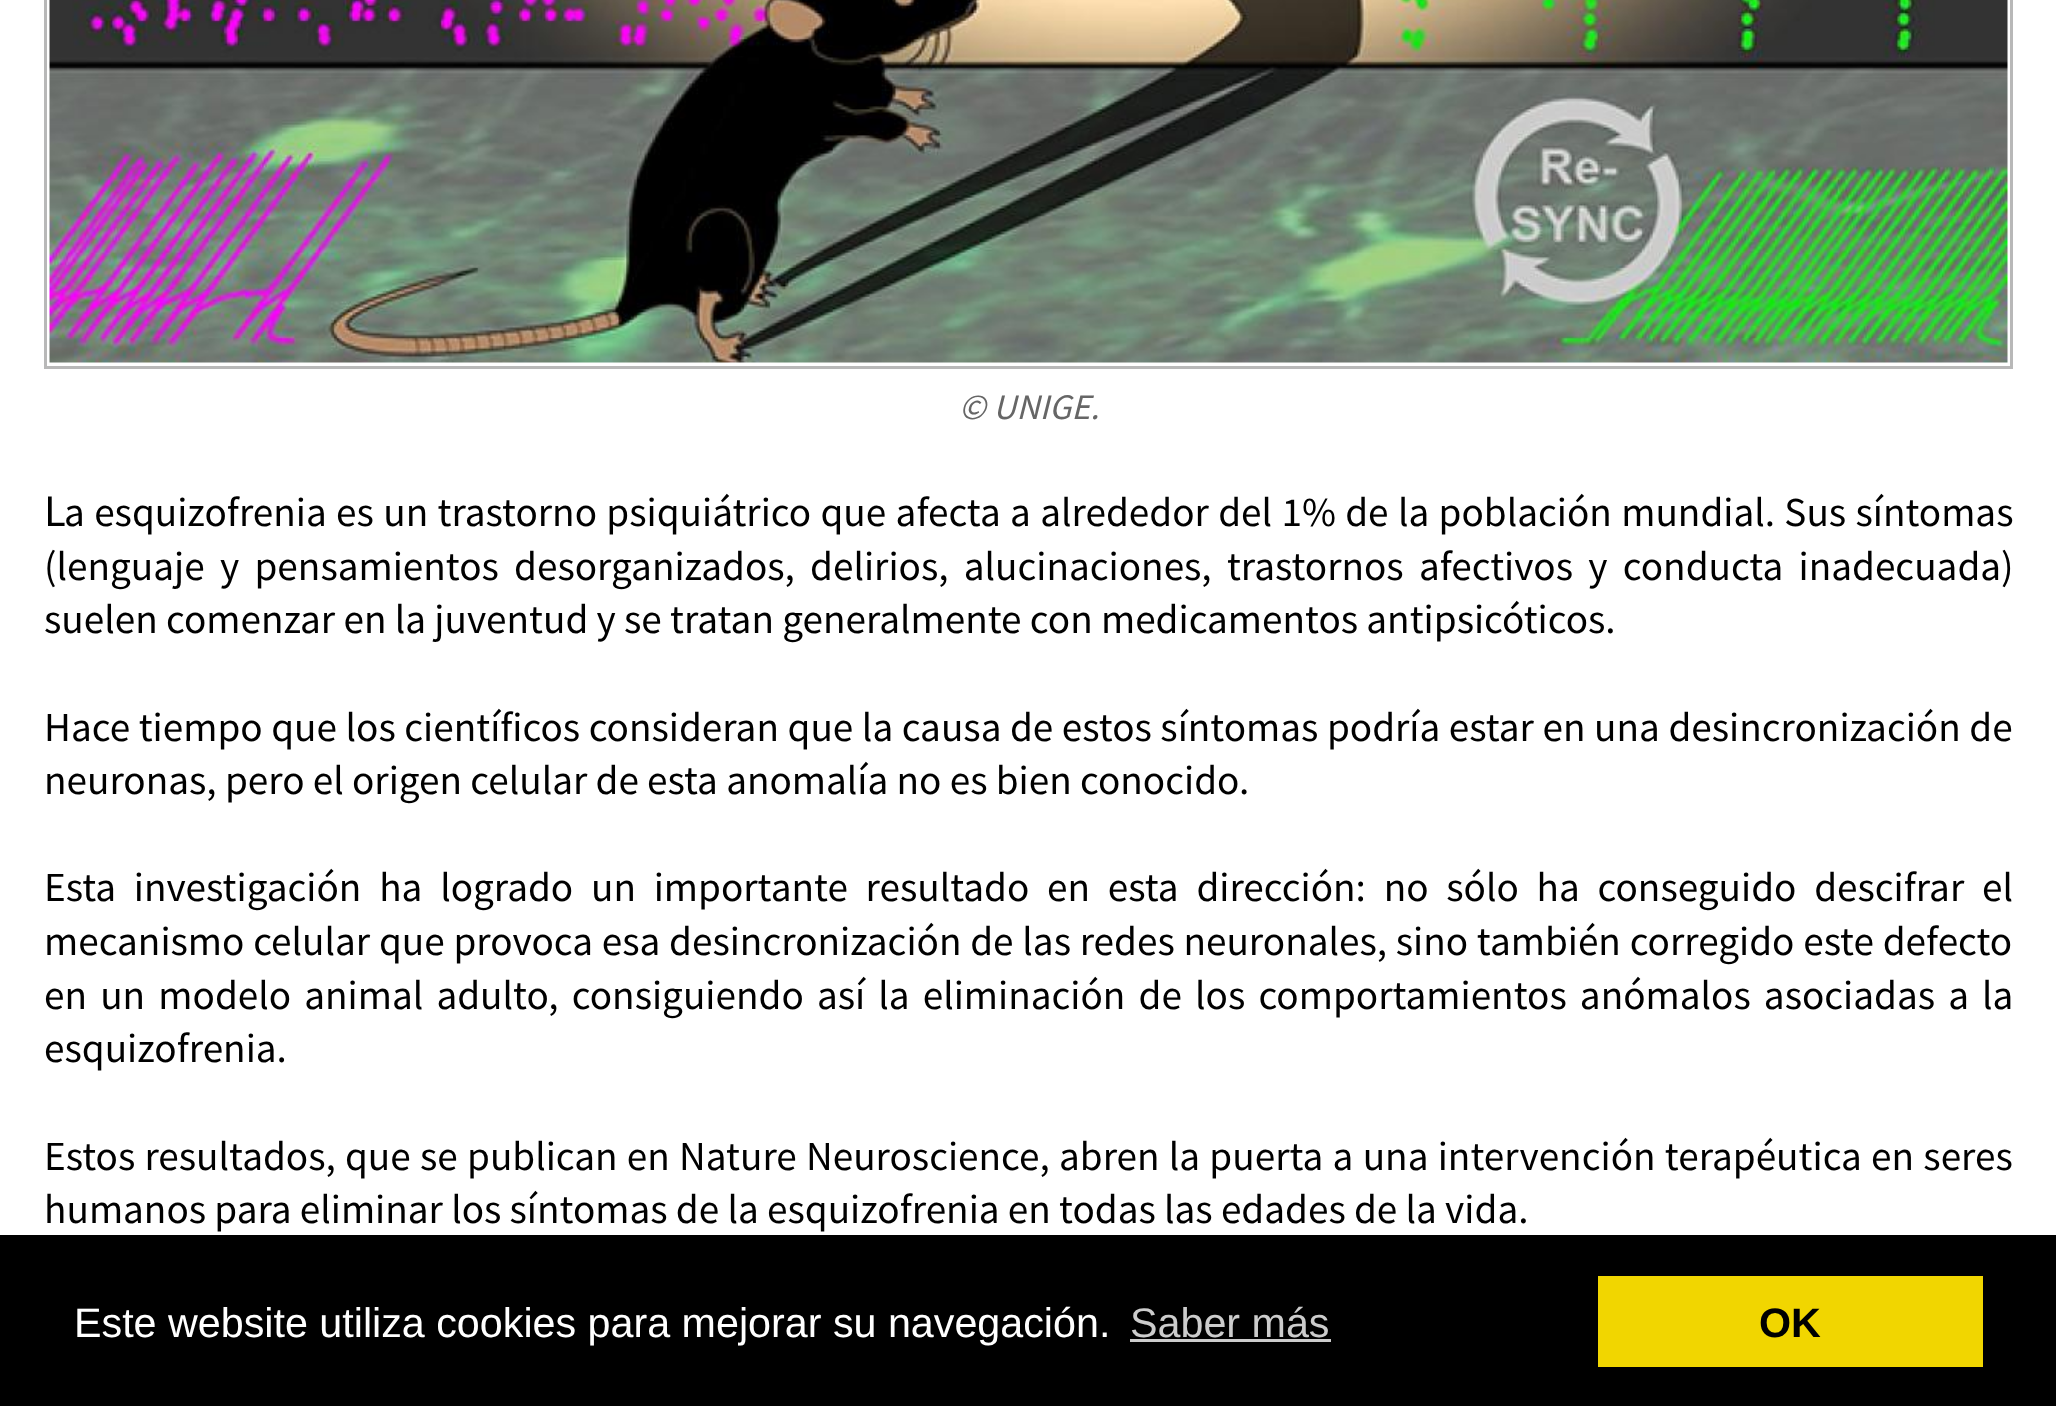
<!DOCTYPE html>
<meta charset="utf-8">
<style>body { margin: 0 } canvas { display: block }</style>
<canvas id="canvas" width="2056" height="1406"></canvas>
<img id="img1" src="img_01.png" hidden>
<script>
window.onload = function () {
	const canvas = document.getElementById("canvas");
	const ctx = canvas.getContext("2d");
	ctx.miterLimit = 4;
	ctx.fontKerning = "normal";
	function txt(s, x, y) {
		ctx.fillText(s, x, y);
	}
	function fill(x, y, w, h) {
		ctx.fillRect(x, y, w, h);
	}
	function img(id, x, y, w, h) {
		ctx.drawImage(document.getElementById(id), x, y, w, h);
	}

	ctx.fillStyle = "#FFFFFF";
	fill(0, 0, 2056, 1406);
	ctx.strokeStyle = "#B8B8B8";
	ctx.lineWidth = 3;
	ctx.strokeRect(45.5, -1.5, 1966, 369);
	img("img1", 49, 0, 1959, 363);
	ctx.fillStyle = "#000000";
	fill(0, 1235, 2056, 171);
	ctx.fillStyle = "#CCCCCC";
	fill(1130, 1339, 201, 3);
	ctx.fillStyle = "#F1D600";
	fill(1598, 1276, 385, 91);
	ctx.font = "italic 36px Source Sans Pro";
	ctx.fillStyle = "#666666";
	txt("© UNIGE.", 959, 419);
	ctx.font = "41.25px Noto Sans";
	ctx.fillStyle = "#000000";
	txt("L", 44, 526);
	ctx.wordSpacing = "1.1px";
	ctx.font = "41.25px Source Sans Pro";
	txt("a esquizofrenia es un trastorno psiquiátrico que afecta a alrededor del 1% de la población mundial. Sus síntomas", 64, 526);
	ctx.wordSpacing = "7px";
	txt("(lenguaje y pensamientos desorganizados, delirios, alucinaciones, trastornos afectivos y conducta inadecuada)", 44, 580);
	ctx.wordSpacing = "0px";
	txt("suelen comenzar en la juventud y se tratan generalmente con medicamentos antipsicóticos.", 44, 633);
	ctx.wordSpacing = "0.3px";
	txt("Hace tiempo que los científicos consideran que la causa de estos síntomas podría estar en una desincronización de", 44, 741);
	ctx.wordSpacing = "0px";
	txt("neuronas, pero el origen celular de esta anomalía no es bien conocido.", 44, 794);
	ctx.wordSpacing = "9.5px";
	txt("Esta investigación ha logrado un importante resultado en esta dirección: no sólo ha conseguido descifrar el", 44, 901);
	ctx.wordSpacing = "0.5px";
	txt("mecanismo celular que provoca esa desincronización de las redes neuronales, sino también corregido este defecto", 44, 955);
	ctx.wordSpacing = "4.9px";
	txt("en un modelo animal adulto, consiguiendo así la eliminación de los comportamientos anómalos asociadas a la", 44, 1009);
	ctx.wordSpacing = "0px";
	txt("esquizofrenia.", 44, 1062);
	ctx.wordSpacing = "1px";
	txt("Estos resultados, que se publican en Nature Neuroscience, abren la puerta a una intervención terapéutica en seres", 44, 1170);
	ctx.wordSpacing = "0px";
	txt("humanos para eliminar los síntomas de la esquizofrenia en todas las edades de la vida.", 44, 1223);
	ctx.font = "41.25px Liberation Sans";
	ctx.fillStyle = "#FFFFFF";
	txt("Este website utiliza cookies para mejorar su navegación.", 74, 1337);
	ctx.fillStyle = "#CCCCCC";
	txt("Saber más", 1130, 1337);
	ctx.font = "bold 41.25px Liberation Sans";
	ctx.fillStyle = "#000000";
	txt("OK", 1759, 1337);
};
</script>
